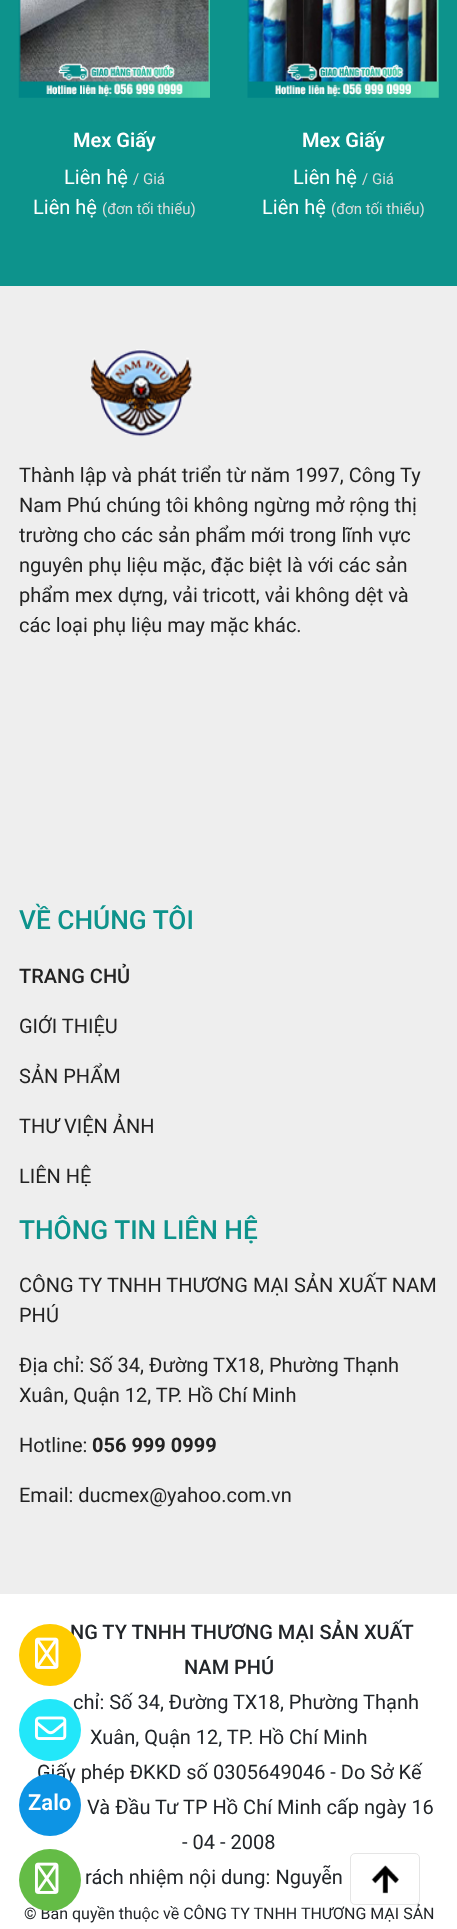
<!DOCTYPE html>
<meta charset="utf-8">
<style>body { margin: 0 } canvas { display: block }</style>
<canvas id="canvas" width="457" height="1929"></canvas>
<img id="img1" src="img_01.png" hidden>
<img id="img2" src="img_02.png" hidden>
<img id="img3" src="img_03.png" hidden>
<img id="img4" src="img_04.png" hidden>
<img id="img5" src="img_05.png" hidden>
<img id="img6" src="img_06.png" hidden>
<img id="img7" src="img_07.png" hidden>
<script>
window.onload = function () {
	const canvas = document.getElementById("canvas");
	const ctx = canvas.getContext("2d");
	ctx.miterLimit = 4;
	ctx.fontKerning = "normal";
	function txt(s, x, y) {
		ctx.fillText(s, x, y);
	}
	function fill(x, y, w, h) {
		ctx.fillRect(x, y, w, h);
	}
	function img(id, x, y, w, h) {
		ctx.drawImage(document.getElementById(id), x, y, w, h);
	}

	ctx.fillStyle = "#FFFFFF";
	fill(0, 0, 457, 1929);
	ctx.fillStyle = "#0D938C";
	fill(0, 0, 457, 286);
	img("img1", 18, 0, 192, 98);
	img("img2", 247, 0, 192, 98);
	ctx.fillStyle = "#EEEEEE";
	fill(0, 286, 457, 1308);
	img("img3", 90, 349, 103, 88);
	ctx.font = "600 20px Roboto";
	ctx.fillStyle = "#FFFFFF";
	txt("Mex Giấy", 73, 147);
	ctx.font = "20px Roboto";
	txt("Liên hệ", 64, 184);
	ctx.font = "15px Roboto";
	ctx.fillStyle = "#DDDDDD";
	txt("/ Giá", 133, 184);
	ctx.font = "20px Roboto";
	ctx.fillStyle = "#FFFFFF";
	txt("Liên hệ", 33, 214);
	ctx.font = "15px Roboto";
	ctx.fillStyle = "#DDDDDD";
	txt("(đơn tối thiểu)", 102, 214);
	ctx.font = "600 20px Roboto";
	ctx.fillStyle = "#FFFFFF";
	txt("Mex Giấy", 302, 147);
	ctx.font = "20px Roboto";
	txt("Liên hệ", 293, 184);
	ctx.font = "15px Roboto";
	ctx.fillStyle = "#DDDDDD";
	txt("/ Giá", 362, 184);
	ctx.font = "20px Roboto";
	ctx.fillStyle = "#FFFFFF";
	txt("Liên hệ", 262, 214);
	ctx.font = "15px Roboto";
	ctx.fillStyle = "#DDDDDD";
	txt("(đơn tối thiểu)", 331, 214);
	ctx.font = "20px Roboto";
	ctx.fillStyle = "#222222";
	txt("Thành lập và phát triển từ năm 1997, Công Ty", 19, 482);
	txt("Nam Phú chúng tôi không ngừng mở rộng thị", 19, 512);
	txt("trường cho các sản phẩm mới trong lĩnh vực", 19, 542);
	txt("nguyên phụ liệu mặc, đặc biệt là với các sản", 19, 572);
	txt("phẩm mex dựng, vải tricott, vải không dệt và", 19, 602);
	txt("các loại phụ liệu may mặc khác.", 19, 632);
	ctx.font = "500 26.25px Roboto";
	ctx.fillStyle = "#0D938C";
	txt("VỀ CHÚNG TÔI", 19, 929);
	ctx.font = "500 20px Roboto";
	ctx.fillStyle = "#222222";
	txt("TRANG CHỦ", 19, 983);
	ctx.font = "20px Roboto";
	txt("GIỚI THIỆU", 19, 1033);
	txt("SẢN PHẨM", 19, 1083);
	txt("THƯ VIỆN ẢNH", 19, 1133);
	txt("LIÊN HỆ", 19, 1183);
	ctx.font = "500 26.25px Roboto";
	ctx.fillStyle = "#0D938C";
	txt("THÔNG TIN LIÊN HỆ", 19, 1239);
	ctx.font = "20px Roboto";
	ctx.fillStyle = "#222222";
	txt("CÔNG TY TNHH THƯƠNG MẠI SẢN XUẤT NAM", 19, 1292);
	txt("PHÚ", 19, 1322);
	txt("Địa chỉ: Số 34, Đường TX18, Phường Thạnh", 19, 1372);
	txt("Xuân, Quận 12, TP. Hồ Chí Minh", 19, 1402);
	txt("Hotline:", 19, 1452);
	ctx.font = "bold 20px Roboto";
	txt("056 999 0999", 92, 1452);
	ctx.font = "20px Roboto";
	txt("Email: ducmex@yahoo.com.vn", 19, 1502);
	ctx.font = "500 20px Roboto";
	ctx.fillStyle = "#212529";
	txt("NG TY TNHH THƯƠNG MẠI SẢN XUẤT", 70, 1639);
	txt("NAM PHÚ", 184, 1674);
	ctx.font = "20px Roboto";
	txt("chỉ: Số 34, Đường TX18, Phường Thạnh", 73, 1709);
	txt("Xuân, Quận 12, TP. Hồ Chí Minh", 90, 1744);
	txt("Giấy phép ĐKKD số 0305649046 - Do Sở Kế", 37, 1779);
	txt("Và Đầu Tư TP Hồ Chí Minh cấp ngày 16", 87, 1814);
	txt("- 04 - 2008", 182, 1849);
	txt("rách nhiệm nội dung: Nguyễn", 85, 1884);
	ctx.font = "16px Roboto";
	txt("© Bản quyền thuộc về CÔNG TY TNHH THƯƠNG MẠI SẢN", 24, 1919);
	ctx.fillStyle = "#FFCC00";
	ctx.beginPath();
	ctx.arc(50, 1655, 31, 0, Math.PI * 2);
	ctx.fill();
	img("img4", 35, 1637, 24, 32);
	ctx.fillStyle = "#22E7F9";
	ctx.beginPath();
	ctx.arc(50, 1730, 31, 0, Math.PI * 2);
	ctx.fill();
	img("img5", 35, 1716, 32, 24);
	ctx.fillStyle = "#0D94E4";
	ctx.beginPath();
	ctx.arc(50, 1805, 31, 0, Math.PI * 2);
	ctx.fill();
	ctx.font = "600 22px Roboto";
	ctx.fillStyle = "#FFFFFF";
	txt("Zalo", 28, 1810);
	ctx.fillStyle = "#64BC46";
	ctx.beginPath();
	ctx.arc(50, 1880, 31, 0, Math.PI * 2);
	ctx.fill();
	img("img6", 35, 1862, 24, 32);
	ctx.fillStyle = "#FFFFFF";
	ctx.beginPath();
	ctx.roundRect(350.5, 1853.5, 69, 51, 4.5);
	ctx.fill();
	ctx.strokeStyle = "#E5E5E5";
	ctx.stroke();
	img("img7", 371, 1865, 28, 29);
};
</script>
